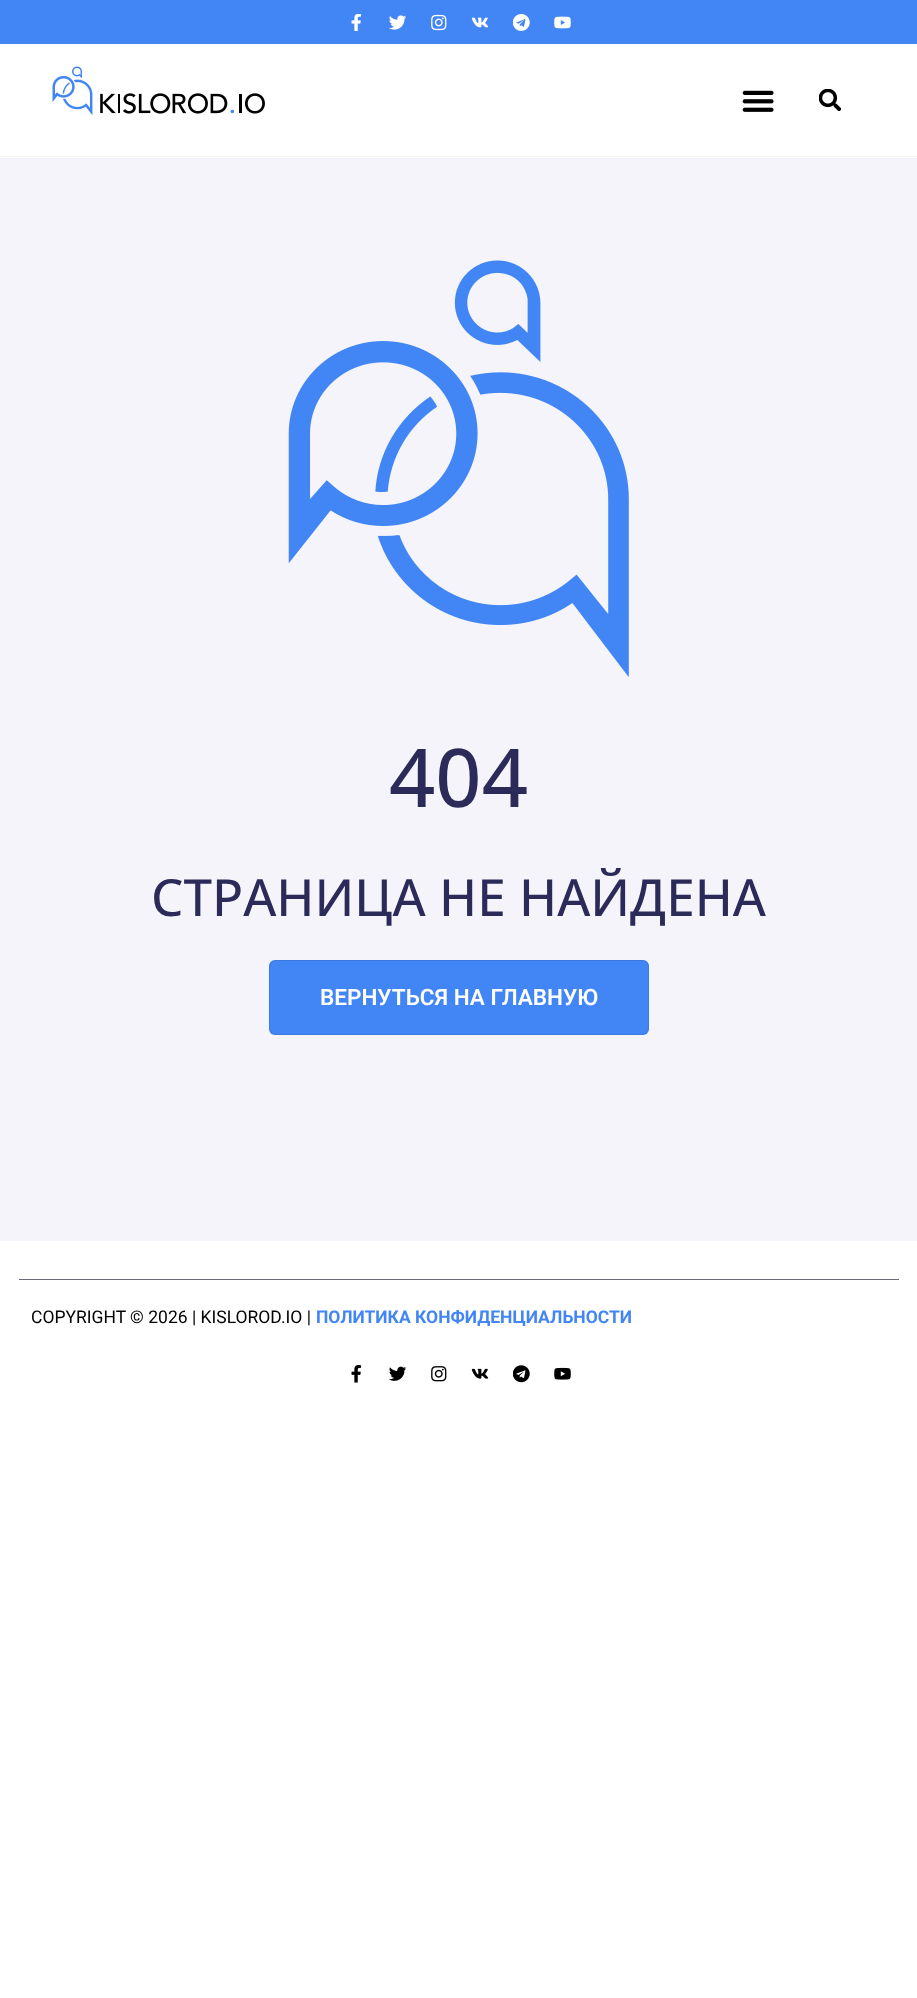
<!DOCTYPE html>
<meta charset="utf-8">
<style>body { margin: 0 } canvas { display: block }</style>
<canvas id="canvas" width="917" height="1998"></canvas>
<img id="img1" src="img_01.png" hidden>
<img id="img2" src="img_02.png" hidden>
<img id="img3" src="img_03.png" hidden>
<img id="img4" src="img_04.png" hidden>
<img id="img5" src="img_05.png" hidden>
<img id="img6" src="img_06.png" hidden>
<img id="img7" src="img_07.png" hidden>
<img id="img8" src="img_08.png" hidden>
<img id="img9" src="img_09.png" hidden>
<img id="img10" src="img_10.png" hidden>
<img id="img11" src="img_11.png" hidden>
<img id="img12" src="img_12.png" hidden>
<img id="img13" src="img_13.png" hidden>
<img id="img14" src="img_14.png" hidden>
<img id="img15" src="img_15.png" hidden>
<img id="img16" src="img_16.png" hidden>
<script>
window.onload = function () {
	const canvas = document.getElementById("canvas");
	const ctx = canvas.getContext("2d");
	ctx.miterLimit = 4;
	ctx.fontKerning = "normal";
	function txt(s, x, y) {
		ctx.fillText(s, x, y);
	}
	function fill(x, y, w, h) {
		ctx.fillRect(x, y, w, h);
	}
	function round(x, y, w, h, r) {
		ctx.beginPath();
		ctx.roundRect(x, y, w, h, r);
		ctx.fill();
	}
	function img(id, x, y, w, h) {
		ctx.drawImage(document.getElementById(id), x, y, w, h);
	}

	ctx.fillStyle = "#FFFFFF";
	fill(0, 0, 917, 1998);
	ctx.fillStyle = "#4285F4";
	fill(0, 0, 917, 44);
	img("img1", 351, 14, 10, 17);
	img("img2", 389, 15, 17, 15);
	img("img3", 431, 14, 16, 17);
	img("img4", 471, 17, 18, 11);
	img("img5", 513, 14, 17, 17);
	img("img6", 554, 16, 17, 13);
	ctx.fillStyle = "#F8F8F8";
	fill(0, 156, 917, 1);
	img("img7", 52, 66, 213, 50);
	img("img8", 742, 90, 32, 22);
	img("img9", 819, 89, 22, 22);
	ctx.fillStyle = "#F4F4FA";
	fill(0, 158, 917, 1083);
	img("img10", 288, 260, 341, 417);
	ctx.fillStyle = "#4285F4";
	round(269, 960, 380, 75, 6);
	ctx.beginPath();
	ctx.roundRect(269.5, 960.5, 379, 74, 5.5);
	ctx.strokeStyle = "rgba(2, 1, 1, 0.08)";
	ctx.stroke();
	ctx.fillStyle = "#6A6975";
	fill(19, 1279, 880, 1);
	img("img11", 351, 1365, 10, 18);
	img("img12", 389, 1366, 17, 15);
	img("img13", 431, 1366, 16, 16);
	img("img14", 471, 1368, 18, 11);
	img("img15", 513, 1365, 17, 18);
	img("img16", 554, 1367, 17, 13);
	ctx.font = "500 81px Open Sans";
	ctx.fillStyle = "#2C2A59";
	txt("404", 389, 807);
	ctx.font = "500 51.25px Open Sans";
	txt("СТРАНИЦА НЕ НАЙДЕНА", 151, 916);
	ctx.font = "600 22.5px Roboto";
	ctx.fillStyle = "#FFFFFF";
	txt("ВЕРНУТЬСЯ НА ГЛАВНУЮ", 320, 1005);
	ctx.font = "17.5px Roboto";
	ctx.fillStyle = "#000000";
	txt("COPYRIGHT © 2026 | KISLOROD.IO |", 31, 1323);
	ctx.font = "bold 17.5px Roboto";
	ctx.fillStyle = "#4285F4";
	txt("ПОЛИТИКА КОНФИДЕНЦИАЛЬНОСТИ", 316, 1323);
};
</script>
